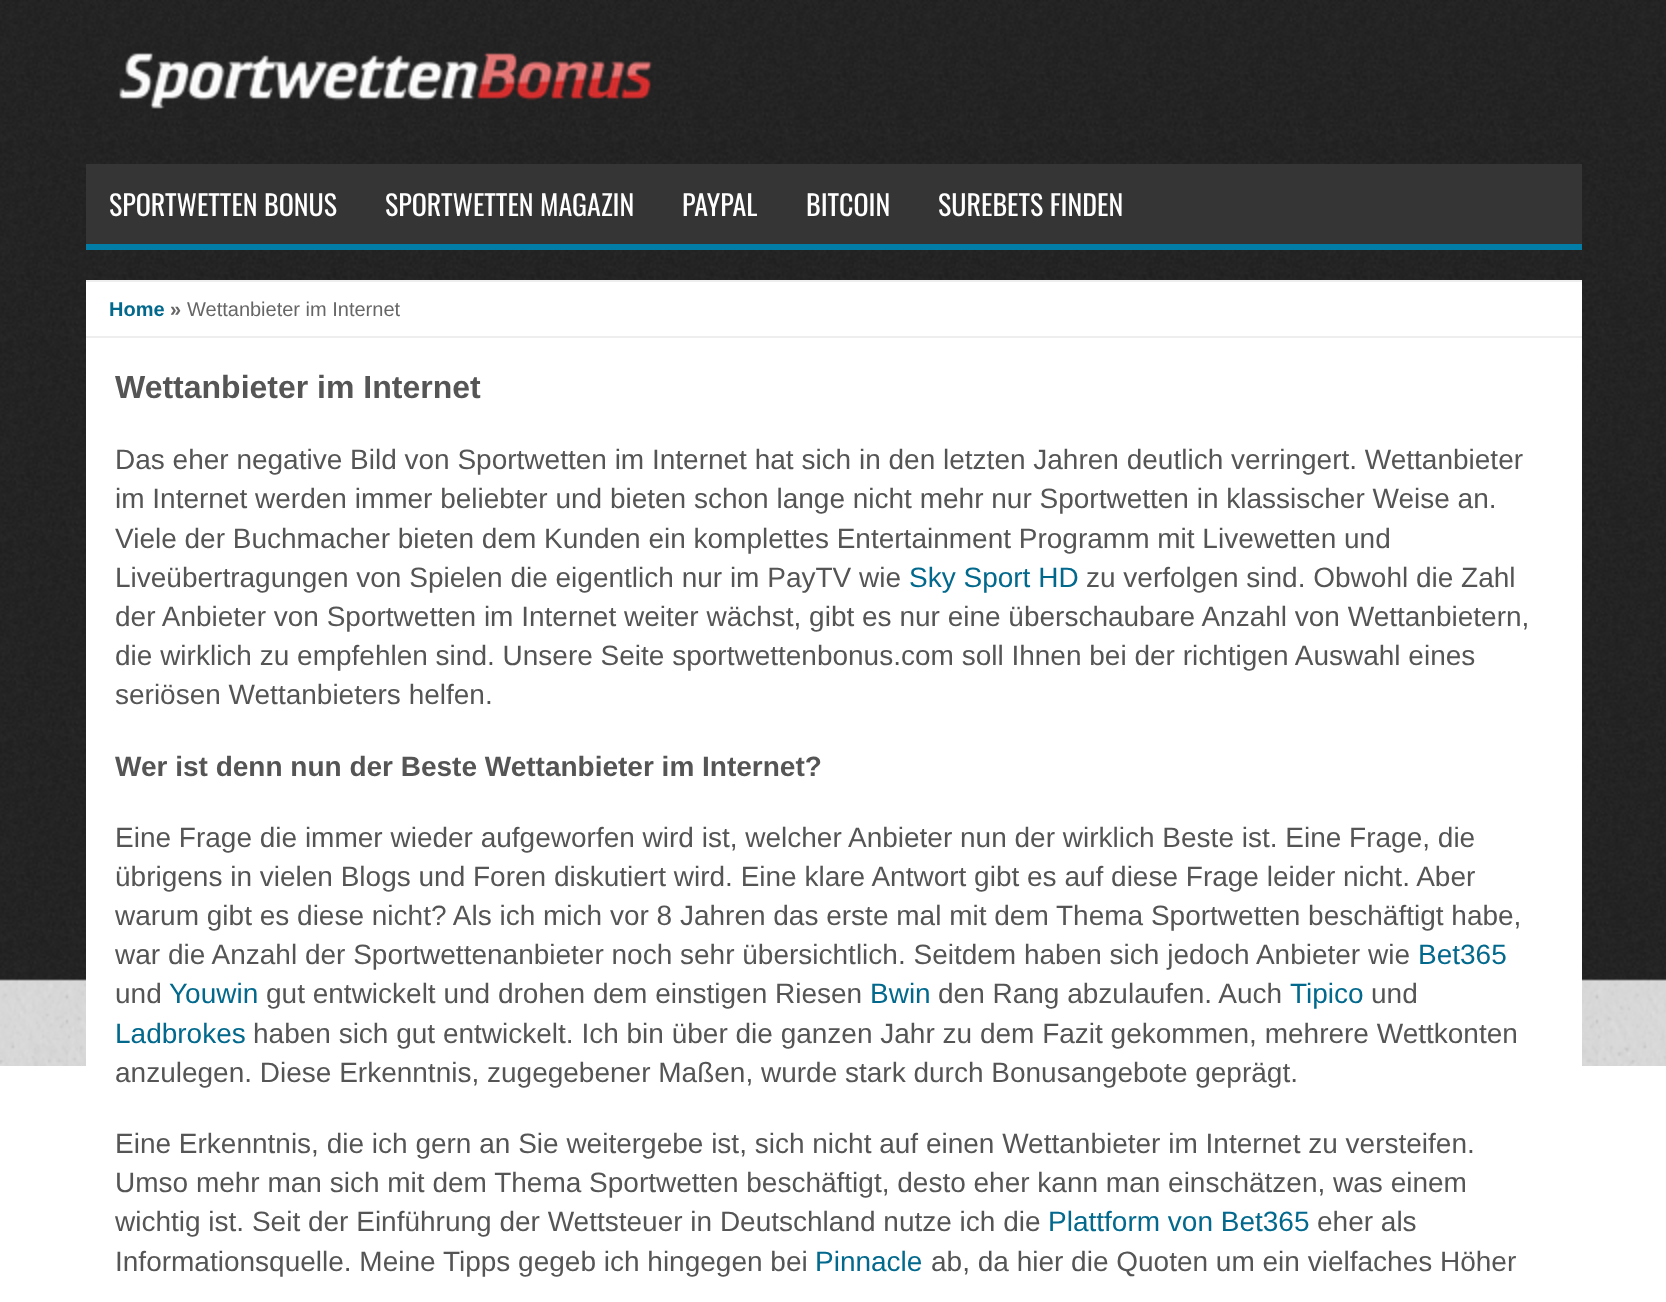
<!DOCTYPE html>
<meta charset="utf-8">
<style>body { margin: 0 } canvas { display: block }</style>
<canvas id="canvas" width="1666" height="1302"></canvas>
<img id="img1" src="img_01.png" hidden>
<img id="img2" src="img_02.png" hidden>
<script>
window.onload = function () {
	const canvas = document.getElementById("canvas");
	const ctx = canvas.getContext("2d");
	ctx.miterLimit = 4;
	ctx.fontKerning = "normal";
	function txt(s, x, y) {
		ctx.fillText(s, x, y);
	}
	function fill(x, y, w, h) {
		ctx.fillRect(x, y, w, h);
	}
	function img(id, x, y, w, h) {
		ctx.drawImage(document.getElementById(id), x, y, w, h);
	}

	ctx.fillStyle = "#FFFFFF";
	fill(0, 0, 1666, 1302);
	img("img1", 0, 0, 1666, 1066);
	img("img2", 119, 52, 534, 57);
	ctx.fillStyle = "#353535";
	fill(86, 164, 1496, 80);
	ctx.fillStyle = "#027DA8";
	fill(86, 244, 1496, 6);
	ctx.fillStyle = "#FFFFFF";
	fill(86, 282, 1496, 784);
	ctx.fillStyle = "#EEEEEE";
	fill(86, 280, 1496, 2);
	fill(86, 336, 1496, 2);
	ctx.font = "28px Oswald";
	ctx.fillStyle = "#FFFFFF";
	txt("SPORTWETTEN BONUS", 109, 216);
	txt("SPORTWETTEN MAGAZIN", 385, 216);
	txt("PAYPAL", 682, 216);
	txt("BITCOIN", 806, 216);
	txt("SUREBETS FINDEN", 938, 216);
	ctx.font = "bold 20px Liberation Sans";
	ctx.fillStyle = "#02698D";
	txt("Home", 109, 316);
	ctx.fillStyle = "#666666";
	txt("»", 170, 316);
	ctx.font = "20px Liberation Sans";
	txt("Wettanbieter im Internet", 187, 316);
	ctx.font = "bold 32px Liberation Sans";
	ctx.fillStyle = "#555555";
	txt("Wettanbieter im Internet", 115, 398);
	ctx.font = "28px Liberation Sans";
	txt("Das eher negative Bild von Sportwetten im Internet hat sich in den letzten Jahren deutlich verringert. Wettanbieter", 115, 469);
	txt("im Internet werden immer beliebter und bieten schon lange nicht mehr nur Sportwetten in klassischer Weise an.", 115, 508);
	txt("Viele der Buchmacher bieten dem Kunden ein komplettes Entertainment Programm mit Livewetten und", 115, 548);
	txt("Liveübertragungen von Spielen die eigentlich nur im PayTV wie", 115, 587);
	ctx.fillStyle = "#02698D";
	txt("Sky Sport HD", 909, 587);
	ctx.fillStyle = "#555555";
	txt("zu verfolgen sind. Obwohl die Zahl", 1086, 587);
	txt("der Anbieter von Sportwetten im Internet weiter wächst, gibt es nur eine überschaubare Anzahl von Wettanbietern,", 115, 626);
	txt("die wirklich zu empfehlen sind. Unsere Seite sportwettenbonus.com soll Ihnen bei der richtigen Auswahl eines", 115, 665);
	txt("seriösen Wettanbieters helfen.", 115, 704);
	ctx.font = "bold 28px Liberation Sans";
	txt("Wer ist denn nun der Beste Wettanbieter im Internet?", 115, 776);
	ctx.font = "28px Liberation Sans";
	txt("Eine Frage die immer wieder aufgeworfen wird ist, welcher Anbieter nun der wirklich Beste ist. Eine Frage, die", 115, 847);
	txt("übrigens in vielen Blogs und Foren diskutiert wird. Eine klare Antwort gibt es auf diese Frage leider nicht. Aber", 115, 886);
	txt("warum gibt es diese nicht? Als ich mich vor 8 Jahren das erste mal mit dem Thema Sportwetten beschäftigt habe,", 115, 925);
	txt("war die Anzahl der Sportwettenanbieter noch sehr übersichtlich. Seitdem haben sich jedoch Anbieter wie", 115, 964);
	ctx.fillStyle = "#02698D";
	txt("Bet365", 1418, 964);
	ctx.fillStyle = "#555555";
	txt("und", 115, 1003);
	ctx.fillStyle = "#02698D";
	txt("Youwin", 169, 1003);
	ctx.fillStyle = "#555555";
	txt("gut entwickelt und drohen dem einstigen Riesen", 266, 1003);
	ctx.fillStyle = "#02698D";
	txt("Bwin", 870, 1003);
	ctx.fillStyle = "#555555";
	txt("den Rang abzulaufen. Auch", 938, 1003);
	ctx.fillStyle = "#02698D";
	txt("Tipico", 1290, 1003);
	ctx.fillStyle = "#555555";
	txt("und", 1371, 1003);
	ctx.fillStyle = "#02698D";
	txt("Ladbrokes", 115, 1043);
	ctx.fillStyle = "#555555";
	txt("haben sich gut entwickelt. Ich bin über die ganzen Jahr zu dem Fazit gekommen, mehrere Wettkonten", 253, 1043);
	txt("anzulegen. Diese Erkenntnis, zugegebener Maßen, wurde stark durch Bonusangebote geprägt.", 115, 1082);
	txt("Eine Erkenntnis, die ich gern an Sie weitergebe ist, sich nicht auf einen Wettanbieter im Internet zu versteifen.", 115, 1153);
	txt("Umso mehr man sich mit dem Thema Sportwetten beschäftigt, desto eher kann man einschätzen, was einem", 115, 1192);
	txt("wichtig ist. Seit der Einführung der Wettsteuer in Deutschland nutze ich die", 115, 1231);
	ctx.fillStyle = "#02698D";
	txt("Plattform von Bet365", 1048, 1231);
	ctx.fillStyle = "#555555";
	txt("eher als", 1317, 1231);
	txt("Informationsquelle. Meine Tipps gegeb ich hingegen bei", 115, 1271);
	ctx.fillStyle = "#02698D";
	txt("Pinnacle", 815, 1271);
	ctx.fillStyle = "#555555";
	txt("ab, da hier die Quoten um ein vielfaches Höher", 931, 1271);
};
</script>
